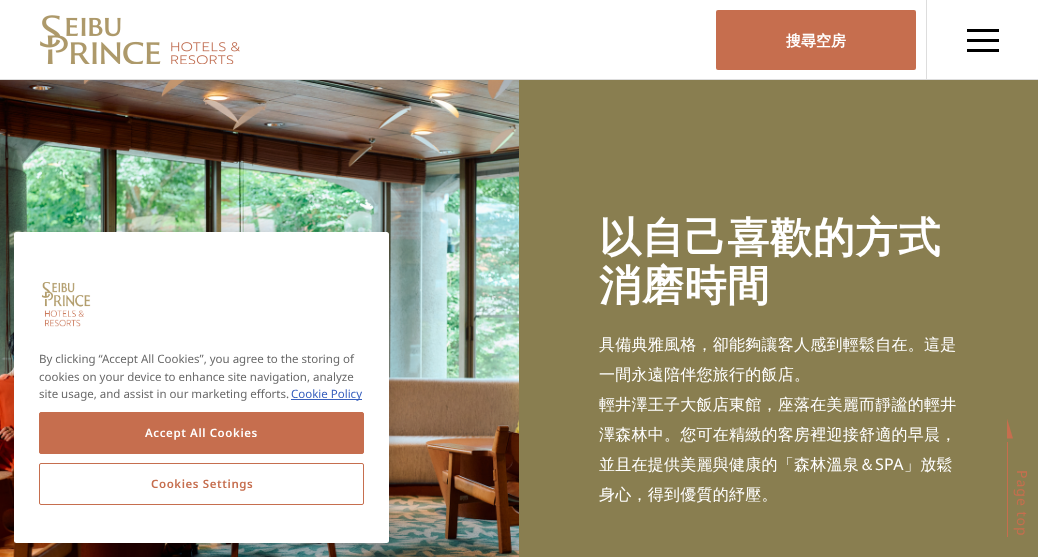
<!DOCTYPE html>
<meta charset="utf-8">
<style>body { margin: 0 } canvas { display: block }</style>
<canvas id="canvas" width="1038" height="557"></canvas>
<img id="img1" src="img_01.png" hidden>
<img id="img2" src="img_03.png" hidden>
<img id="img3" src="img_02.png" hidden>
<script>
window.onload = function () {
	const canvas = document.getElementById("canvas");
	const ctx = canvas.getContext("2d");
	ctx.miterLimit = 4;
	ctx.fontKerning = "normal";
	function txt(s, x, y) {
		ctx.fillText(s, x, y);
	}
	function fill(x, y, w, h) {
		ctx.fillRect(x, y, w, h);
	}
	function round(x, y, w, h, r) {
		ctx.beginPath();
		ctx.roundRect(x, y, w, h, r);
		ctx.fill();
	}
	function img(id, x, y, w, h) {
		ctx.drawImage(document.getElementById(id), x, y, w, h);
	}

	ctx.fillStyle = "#897E50";
	fill(0, 0, 1038, 557);
	ctx.fillStyle = "#FFFFFF";
	fill(0, 0, 1038, 79);
	ctx.fillStyle = "#DDDDDD";
	fill(0, 79, 1038, 1);
	img("img1", 40, 15, 200, 49);
	ctx.fillStyle = "#C66E4E";
	round(716, 10, 200, 60, 2);
	ctx.fillStyle = "#DDDDDD";
	fill(926, 0, 1, 79);
	ctx.fillStyle = "#000000";
	fill(967, 29, 32, 3);
	fill(967, 39, 32, 3);
	fill(967, 49, 32, 3);
	img("img2", 0, 80, 519, 477);
	ctx.fillStyle = "rgba(0, 0, 0, 0.2)";
	ctx.filter = "blur(9px)";
	ctx.beginPath();
	ctx.roundRect(14, 232, 375, 311, 2.5);
	ctx.fill();
	ctx.filter = "none";
	ctx.fillStyle = "#FFFFFF";
	round(14, 232, 375, 311, 2.5);
	img("img3", 41, 282, 50, 45);
	ctx.fillStyle = "#3860BE";
	fill(291, 399, 71, 1);
	ctx.fillStyle = "#C66E4E";
	ctx.beginPath();
	ctx.roundRect(39.5, 412.5, 324, 41, 1.5);
	ctx.fill();
	ctx.strokeStyle = "#C66E4E";
	ctx.stroke();
	ctx.beginPath();
	ctx.roundRect(39.5, 463.5, 324, 41, 1.5);
	ctx.stroke();
	ctx.beginPath();
	ctx.moveTo(1013, 438.5);
	ctx.lineTo(1007, 438.5);
	ctx.lineTo(1007, 418.5);
	ctx.closePath();
	ctx.fill();
	fill(1007, 442, 1, 95);
	ctx.font = "bold 15px WenQuanYi Zen Hei";
	ctx.fillStyle = "#FFFFFF";
	txt("搜尋空房", 786, 46);
	ctx.font = "11.5px 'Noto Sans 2'";
	ctx.fillStyle = "#696969";
	txt("By clicking “Accept All Cookies”, you agree to the storing of", 39, 363);
	txt("cookies on your device to enhance site navigation, analyze", 39, 381);
	txt("site usage, and assist in our marketing efforts.", 39, 398);
	ctx.fillStyle = "#3860BE";
	txt("Cookie Policy", 291, 398);
	ctx.letterSpacing = "0.6px";
	ctx.font = "600 11.5px Noto Sans";
	ctx.fillStyle = "#FFFFFF";
	txt("Accept All Cookies", 145, 437);
	ctx.fillStyle = "#C66E4E";
	txt("Cookies Settings", 151, 488);
	ctx.letterSpacing = "0.75px";
	ctx.font = "bold 42px WenQuanYi Zen Hei";
	ctx.fillStyle = "#FFFFFF";
	txt("以自己喜歡的方式", 599, 252);
	txt("消磨時間", 599, 300);
	ctx.letterSpacing = "0.25px";
	ctx.font = "500 16px WenQuanYi Zen Hei";
	txt("具備典雅風格，卻能夠讓客人感到輕鬆自在。這是", 599, 350);
	txt("一間永遠陪伴您旅行的飯店。", 599, 380);
	txt("輕井澤王子大飯店東館，座落在美麗而靜謐的輕井", 599, 410);
	txt("澤森林中。您可在精緻的客房裡迎接舒適的早晨，", 599, 440);
	txt("並且在提供美麗與健康的「森林溫泉＆", 599, 470);
	ctx.font = "16px Noto Sans";
	txt("SPA", 875, 470);
	ctx.font = "500 16px WenQuanYi Zen Hei";
	txt("」放鬆", 904, 470);
	txt("身心，得到優質的紓壓。", 599, 500);
	ctx.letterSpacing = "1px";
	ctx.font = "14px 'Noto Sans 2'";
	ctx.fillStyle = "#C66E4E";
	ctx.save();
	ctx.translate(1017, 470);
	ctx.rotate(90 * Math.PI / 180);
	ctx.fillText("Page top", 0, 0);
	ctx.restore();
};
</script>
